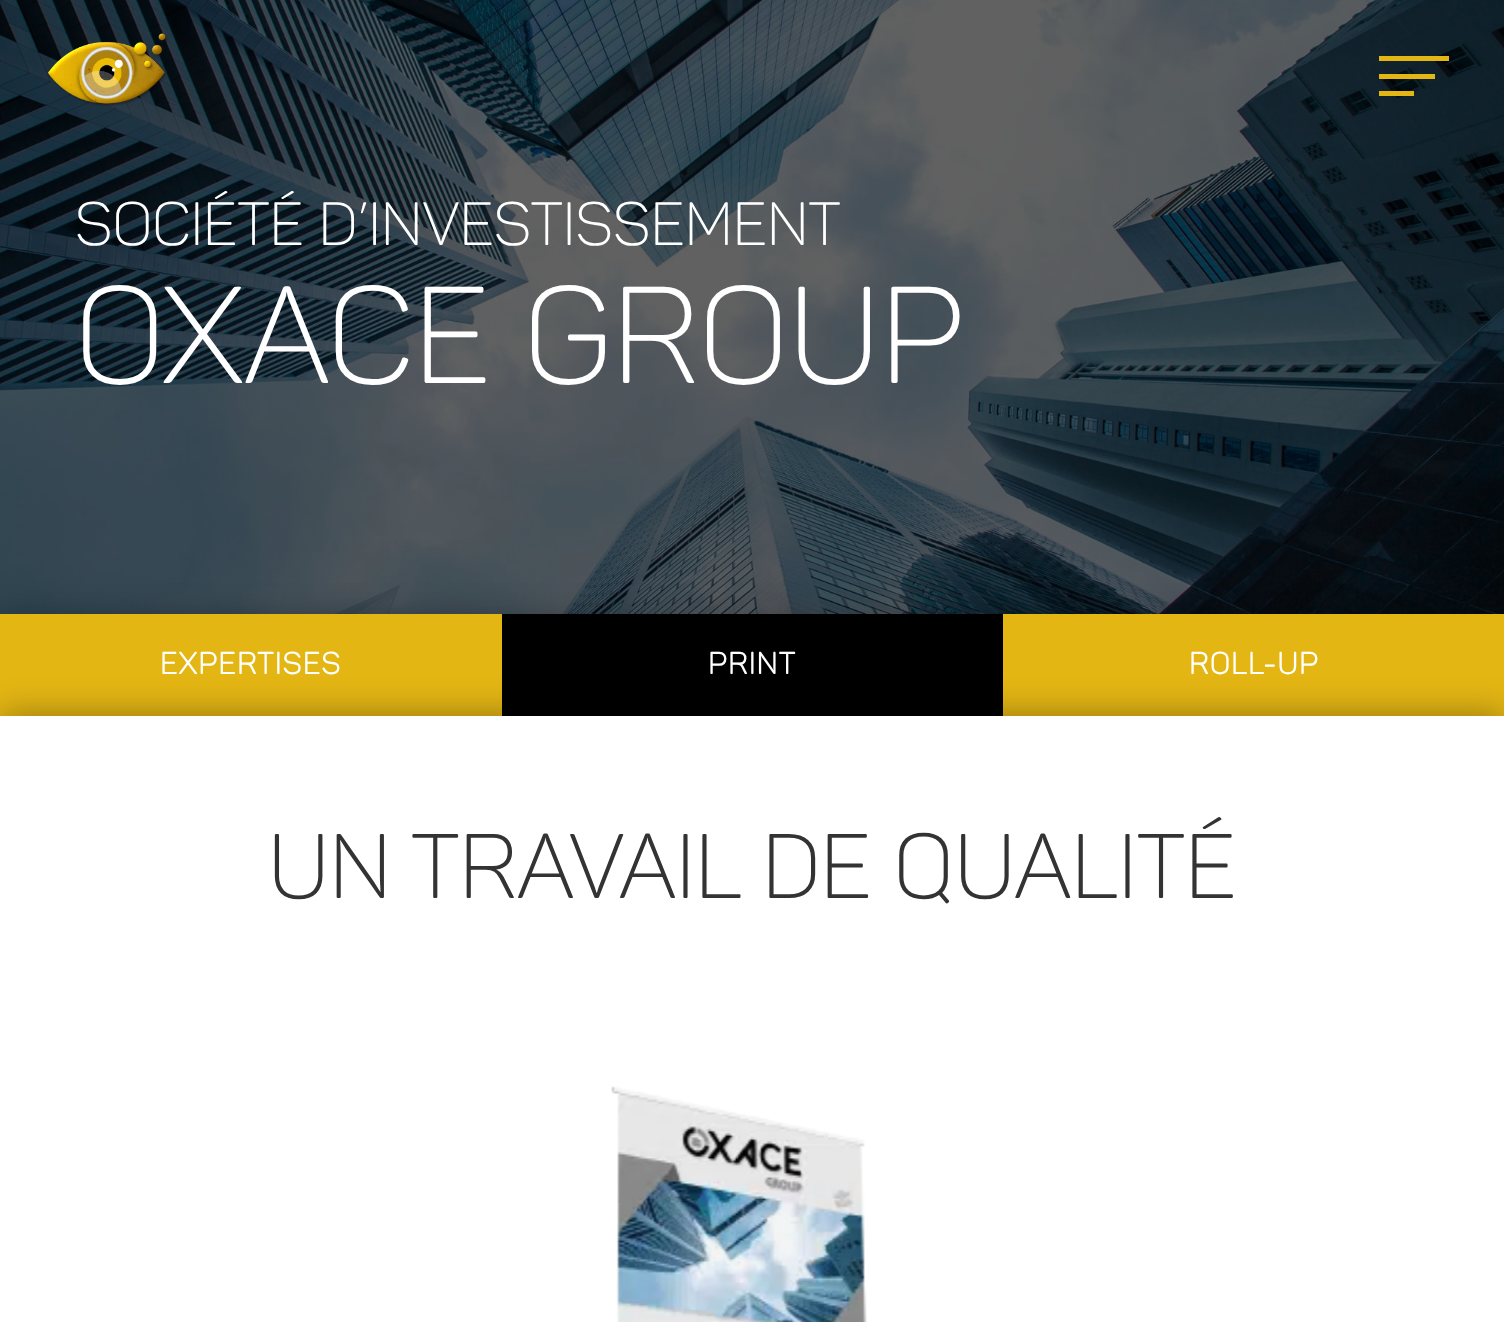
<!DOCTYPE html>
<meta charset="utf-8">
<style>body { margin: 0 } canvas { display: block }</style>
<canvas id="canvas" width="1504" height="1322"></canvas>
<img id="img1" src="img_02.png" hidden>
<img id="img2" src="img_01.png" hidden>
<img id="img3" src="img_03.png" hidden>
<script>
window.onload = function () {
	const canvas = document.getElementById("canvas");
	const ctx = canvas.getContext("2d");
	ctx.miterLimit = 4;
	ctx.fontKerning = "normal";
	function txt(s, x, y) {
		ctx.fillText(s, x, y);
	}
	function fill(x, y, w, h) {
		ctx.fillRect(x, y, w, h);
	}
	function img(id, x, y, w, h) {
		ctx.drawImage(document.getElementById(id), x, y, w, h);
	}

	ctx.fillStyle = "#FFFFFF";
	fill(0, 0, 1504, 1322);
	img("img1", 0, 0, 1504, 614);
	img("img2", 48, 33, 120, 73);
	ctx.fillStyle = "#E4B614";
	fill(1379, 56, 70, 5);
	fill(1379, 74, 56, 5);
	fill(1379, 91, 35, 5);
	ctx.fillStyle = "rgba(0, 0, 0, 0.3)";
	ctx.filter = "blur(16px)";
	ctx.beginPath();
	ctx.rect(0, 618, 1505, 101);
	ctx.fill();
	ctx.filter = "none";
	ctx.fillStyle = "#E4B614";
	fill(0, 614, 1504, 102);
	ctx.fillStyle = "#000000";
	fill(502, 614, 501, 102);
	ctx.fillStyle = "rgba(0, 0, 0, 0.3)";
	ctx.filter = "blur(16px)";
	ctx.beginPath();
	ctx.rect(0, 712, 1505, 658);
	ctx.fill();
	ctx.filter = "none";
	ctx.fillStyle = "#FFFFFF";
	fill(0, 716, 1504, 606);
	img("img3", 611, 1086, 256, 236);
	ctx.font = "300 60.25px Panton";
	txt("Société d’investissement", 75, 245);
	ctx.font = "300 135.5px Panton";
	txt("OXACE Group", 75, 383);
	ctx.letterSpacing = "1.5px";
	ctx.font = "bold 30px Panton";
	txt("EXPERTISES", 160, 674);
	txt("PRINT", 708, 674);
	txt("ROLL-UP", 1189, 674);
	ctx.letterSpacing = "0px";
	ctx.font = "300 90.25px Panton";
	ctx.fillStyle = "#333333";
	txt("UN TRAVAIL DE QUALITÉ", 268, 898);
};
</script>
